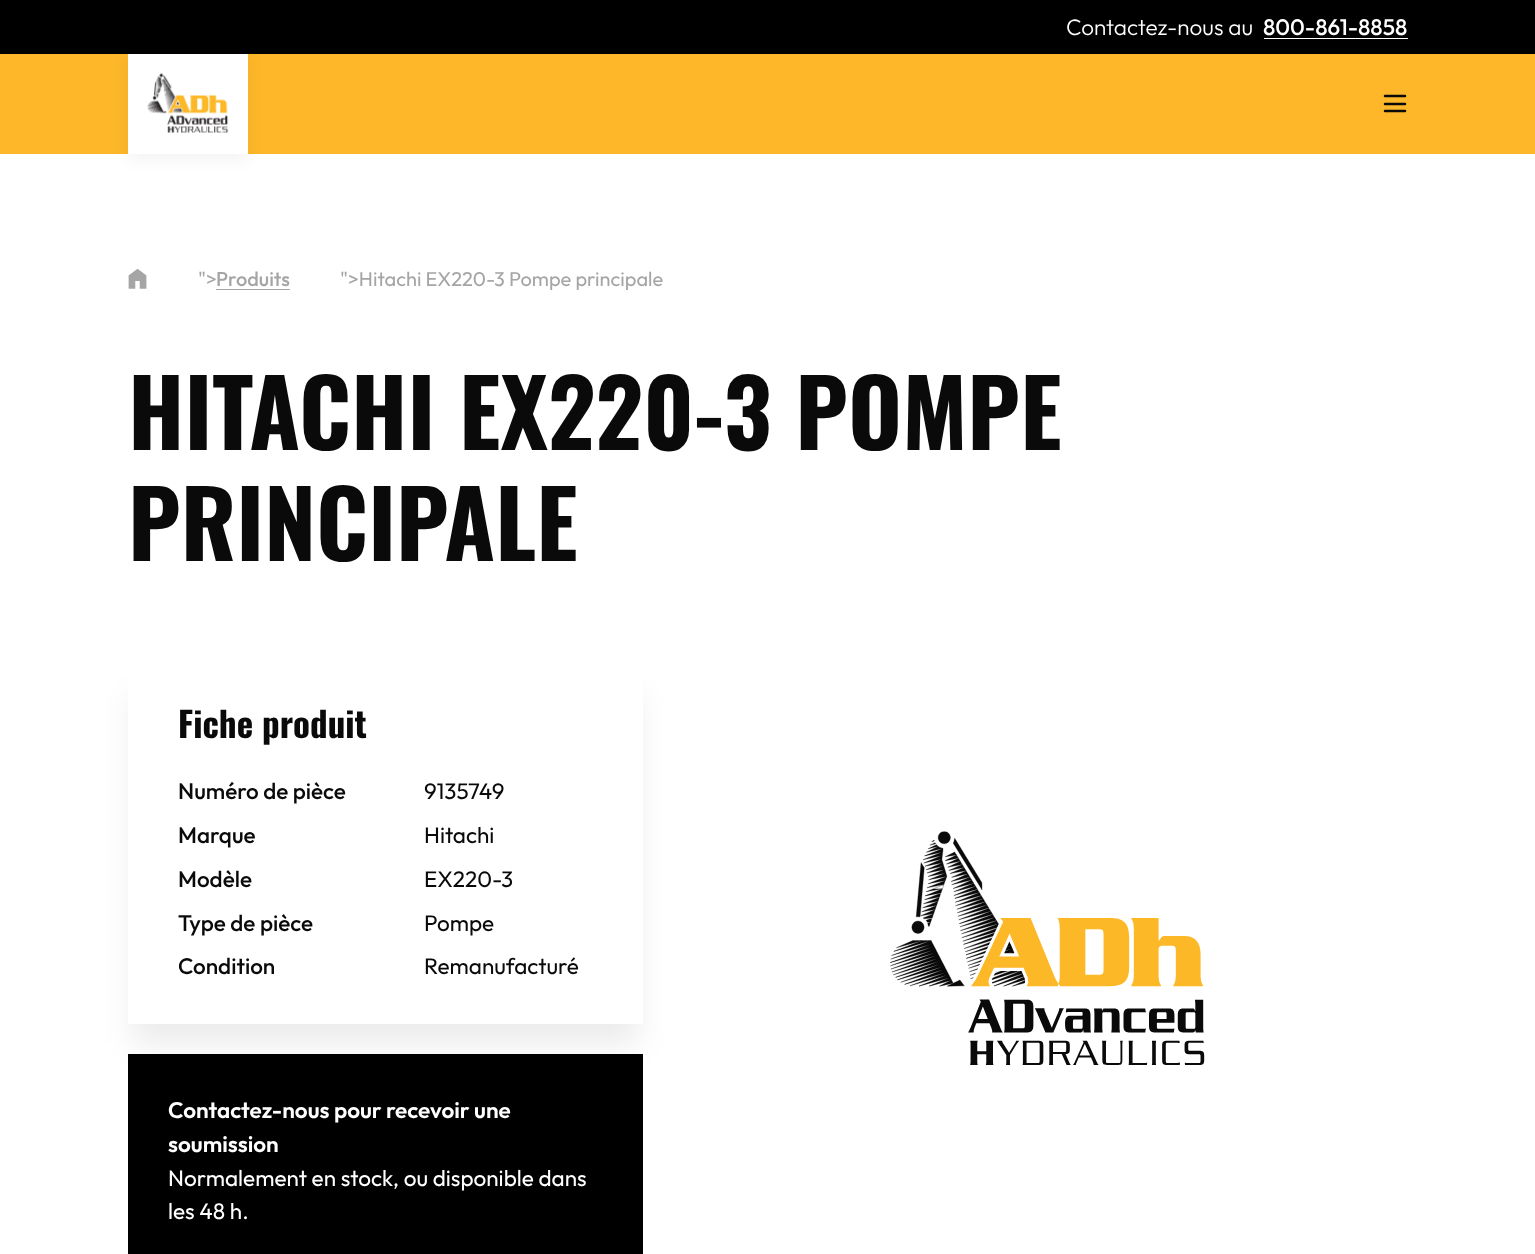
<!DOCTYPE html>
<meta charset="utf-8">
<style>body { margin: 0 } canvas { display: block }</style>
<canvas id="canvas" width="1535" height="1254"></canvas>
<img id="img1" src="img_01.png" hidden>
<img id="img2" src="img_02.png" hidden>
<img id="img3" src="img_03.png" hidden>
<script>
window.onload = function () {
	const canvas = document.getElementById("canvas");
	const ctx = canvas.getContext("2d");
	ctx.miterLimit = 4;
	ctx.fontKerning = "normal";
	function txt(s, x, y) {
		ctx.fillText(s, x, y);
	}
	function fill(x, y, w, h) {
		ctx.fillRect(x, y, w, h);
	}
	function img(id, x, y, w, h) {
		ctx.drawImage(document.getElementById(id), x, y, w, h);
	}

	ctx.fillStyle = "#FFFFFF";
	fill(0, 0, 1535, 1254);
	ctx.fillStyle = "#000000";
	fill(0, 0, 1535, 54);
	ctx.fillStyle = "#FFFFFF";
	fill(1264, 38, 144, 1);
	ctx.fillStyle = "#FEB729";
	fill(0, 54, 1535, 100);
	ctx.fillStyle = "rgba(0, 0, 0, 0.05)";
	ctx.filter = "blur(7.5px)";
	ctx.beginPath();
	ctx.rect(128, 59, 120, 100);
	ctx.fill();
	ctx.filter = "none";
	ctx.fillStyle = "#FFFFFF";
	fill(128, 54, 120, 100);
	img("img1", 147, 73, 82, 60);
	ctx.beginPath();
	ctx.moveTo(1385, 96);
	ctx.lineTo(1405, 96);
	ctx.moveTo(1385, 104);
	ctx.lineTo(1405, 104);
	ctx.moveTo(1385, 111);
	ctx.lineTo(1405, 111);
	ctx.strokeStyle = "#0A0A0A";
	ctx.lineWidth = 2.5;
	ctx.lineCap = "round";
	ctx.lineJoin = "round";
	ctx.stroke();
	img("img2", 128, 269, 19, 20);
	ctx.fillStyle = "#A5A5A5";
	fill(216, 289, 74, 1);
	ctx.save();
	ctx.beginPath();
	ctx.moveTo(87, 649);
	ctx.lineTo(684, 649);
	ctx.lineTo(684, 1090);
	ctx.lineTo(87, 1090);
	ctx.closePath();
	ctx.moveTo(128, 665);
	ctx.lineTo(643, 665);
	ctx.lineTo(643, 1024);
	ctx.lineTo(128, 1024);
	ctx.closePath();
	ctx.clip("evenodd");
	ctx.fillStyle = "rgba(0, 0, 0, 0.08)";
	ctx.filter = "blur(15px)";
	ctx.beginPath();
	ctx.rect(133, 695, 505, 349);
	ctx.fill();
	ctx.filter = "none";
	ctx.restore();
	ctx.fillStyle = "#000000";
	fill(128, 1054, 515, 200);
	img("img3", 890, 831, 315, 234);
	ctx.font = "300 22.5px Outfit";
	ctx.fillStyle = "#FFFFFF";
	txt("Contactez-nous au", 1066, 35);
	ctx.font = "500 22.5px Outfit";
	txt("800-861-8858", 1263, 35);
	ctx.font = "20px Outfit";
	ctx.fillStyle = "#A5A5A5";
	txt("\">", 198, 286);
	ctx.font = "500 20px Outfit";
	txt("Produits", 216, 286);
	ctx.font = "20px Outfit";
	txt("\">Hitachi EX220-3 Pompe principale", 340, 286);
	ctx.font = "bold 92.5px Oswald";
	ctx.fillStyle = "#0A0A0A";
	txt("HITACHI EX220-3 POMPE", 128, 450);
	txt("PRINCIPALE", 128, 561);
	ctx.font = "bold 35px Oswald";
	txt("Fiche produit", 178, 738);
	ctx.font = "500 22.5px Outfit";
	txt("Numéro de pièce", 178, 799);
	ctx.font = "22.5px Outfit";
	txt("9135749", 424, 799);
	ctx.font = "500 22.5px Outfit";
	txt("Marque", 178, 843);
	ctx.font = "22.5px Outfit";
	txt("Hitachi", 424, 843);
	ctx.font = "500 22.5px Outfit";
	txt("Modèle", 178, 887);
	ctx.font = "22.5px Outfit";
	txt("EX220-3", 424, 887);
	ctx.font = "500 22.5px Outfit";
	txt("Type de pièce", 178, 931);
	ctx.font = "22.5px Outfit";
	txt("Pompe", 424, 931);
	ctx.font = "500 22.5px Outfit";
	txt("Condition", 178, 974);
	ctx.font = "22.5px Outfit";
	txt("Remanufacturé", 424, 974);
	ctx.font = "600 22.5px Outfit";
	ctx.fillStyle = "#FFFFFF";
	txt("Contactez-nous pour recevoir une", 168, 1118);
	txt("soumission", 168, 1152);
	ctx.font = "22.5px Outfit";
	txt("Normalement en stock, ou disponible dans", 168, 1186);
	txt("les 48 h.", 168, 1219);
};
</script>
